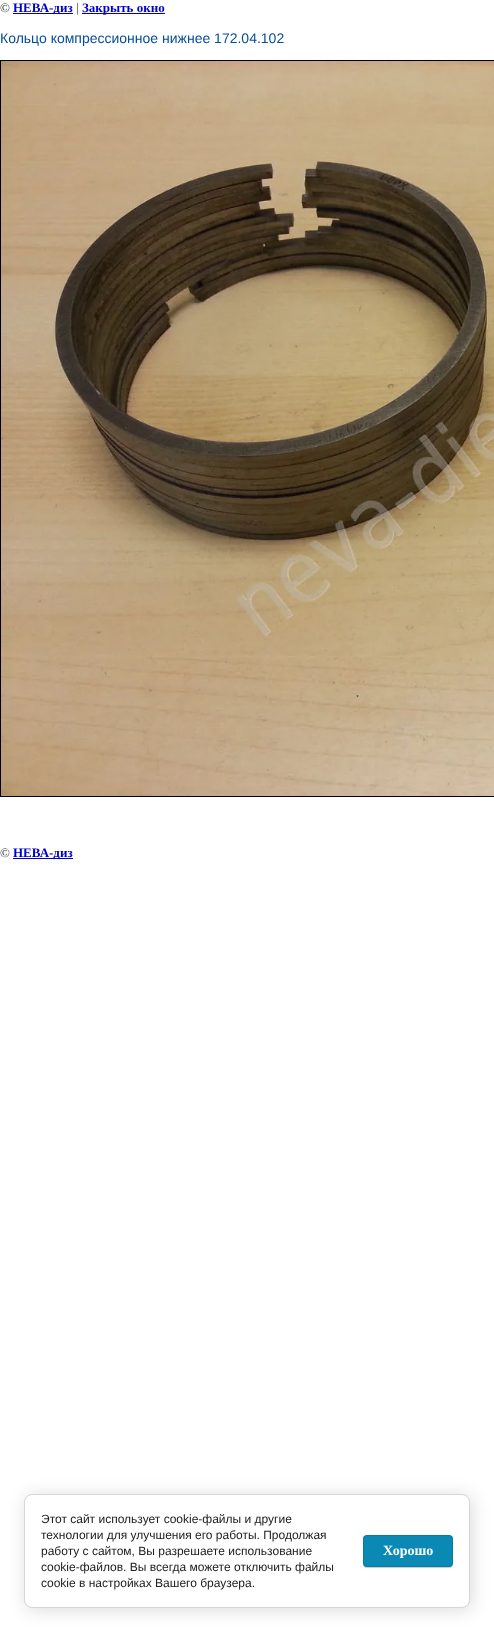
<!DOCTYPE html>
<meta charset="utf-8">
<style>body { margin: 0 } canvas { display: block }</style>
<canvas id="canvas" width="494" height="1632"></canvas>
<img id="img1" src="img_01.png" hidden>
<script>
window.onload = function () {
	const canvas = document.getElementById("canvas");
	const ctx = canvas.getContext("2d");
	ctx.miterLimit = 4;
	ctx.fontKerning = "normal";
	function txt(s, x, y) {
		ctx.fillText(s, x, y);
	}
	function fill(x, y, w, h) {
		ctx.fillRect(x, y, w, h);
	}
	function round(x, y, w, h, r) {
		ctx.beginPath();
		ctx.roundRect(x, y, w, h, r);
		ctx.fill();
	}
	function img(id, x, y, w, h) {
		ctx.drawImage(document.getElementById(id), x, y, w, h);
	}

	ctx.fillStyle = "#FFFFFF";
	fill(0, 0, 494, 1632);
	ctx.fillStyle = "#0000CC";
	fill(13, 13, 60, 1);
	fill(82, 13, 83, 1);
	ctx.strokeStyle = "#000000";
	ctx.strokeRect(0.5, 60.5, 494, 736);
	img("img1", 1, 61, 493, 735);
	fill(13, 858, 60, 1);
	ctx.fillStyle = "rgba(0, 0, 0, 0.14)";
	ctx.filter = "blur(9px)";
	ctx.beginPath();
	ctx.roundRect(26, 1496, 446, 114, 8);
	ctx.fill();
	ctx.filter = "none";
	ctx.fillStyle = "#FFFFFF";
	ctx.beginPath();
	ctx.roundRect(24.5, 1494.5, 445, 113, 7.5);
	ctx.fill();
	ctx.strokeStyle = "#D6D6D6";
	ctx.stroke();
	ctx.fillStyle = "rgba(0, 0, 0, 0.2)";
	ctx.filter = "blur(0.5px)";
	ctx.beginPath();
	ctx.roundRect(363, 1536, 90, 32, 4);
	ctx.fill();
	ctx.filter = "none";
	ctx.fillStyle = "#0989B3";
	round(363, 1535, 90, 32, 4);
	ctx.beginPath();
	ctx.roundRect(363.5, 1535.5, 89, 31, 3.5);
	ctx.strokeStyle = "rgba(0, 0, 0, 0.1)";
	ctx.stroke();
	ctx.font = "13px Liberation Serif";
	ctx.fillStyle = "#393939";
	txt("©", 0, 12);
	ctx.font = "bold 13px Liberation Serif";
	ctx.fillStyle = "#0000CC";
	txt("НЕВА-диз", 13, 12);
	ctx.font = "13px Liberation Serif";
	ctx.fillStyle = "#393939";
	txt("|", 76, 12);
	ctx.font = "bold 13px Liberation Serif";
	ctx.fillStyle = "#0000CC";
	txt("Закрыть окно", 82, 12);
	ctx.font = "14px Liberation Sans";
	ctx.fillStyle = "#054D9A";
	txt("Кольцо компрессионное нижнее 172.04.102", 0, 43);
	ctx.font = "13px Liberation Serif";
	ctx.fillStyle = "#393939";
	txt("©", 0, 857);
	ctx.font = "bold 13px Liberation Serif";
	ctx.fillStyle = "#0000CC";
	txt("НЕВА-диз", 13, 857);
	ctx.font = "12px Liberation Sans";
	ctx.fillStyle = "#212121";
	txt("Этот сайт использует cookie-файлы и другие", 41, 1523);
	txt("технологии для улучшения его работы. Продолжая", 41, 1539);
	txt("работу с сайтом, Вы разрешаете использование", 41, 1555);
	txt("cookie-файлов. Вы всегда можете отключить файлы", 41, 1571);
	txt("cookie в настройках Вашего браузера.", 41, 1587);
	ctx.font = "bold 14px Liberation Serif";
	ctx.fillStyle = "#FFFFFF";
	txt("Хорошо", 383, 1555);
};
</script>
